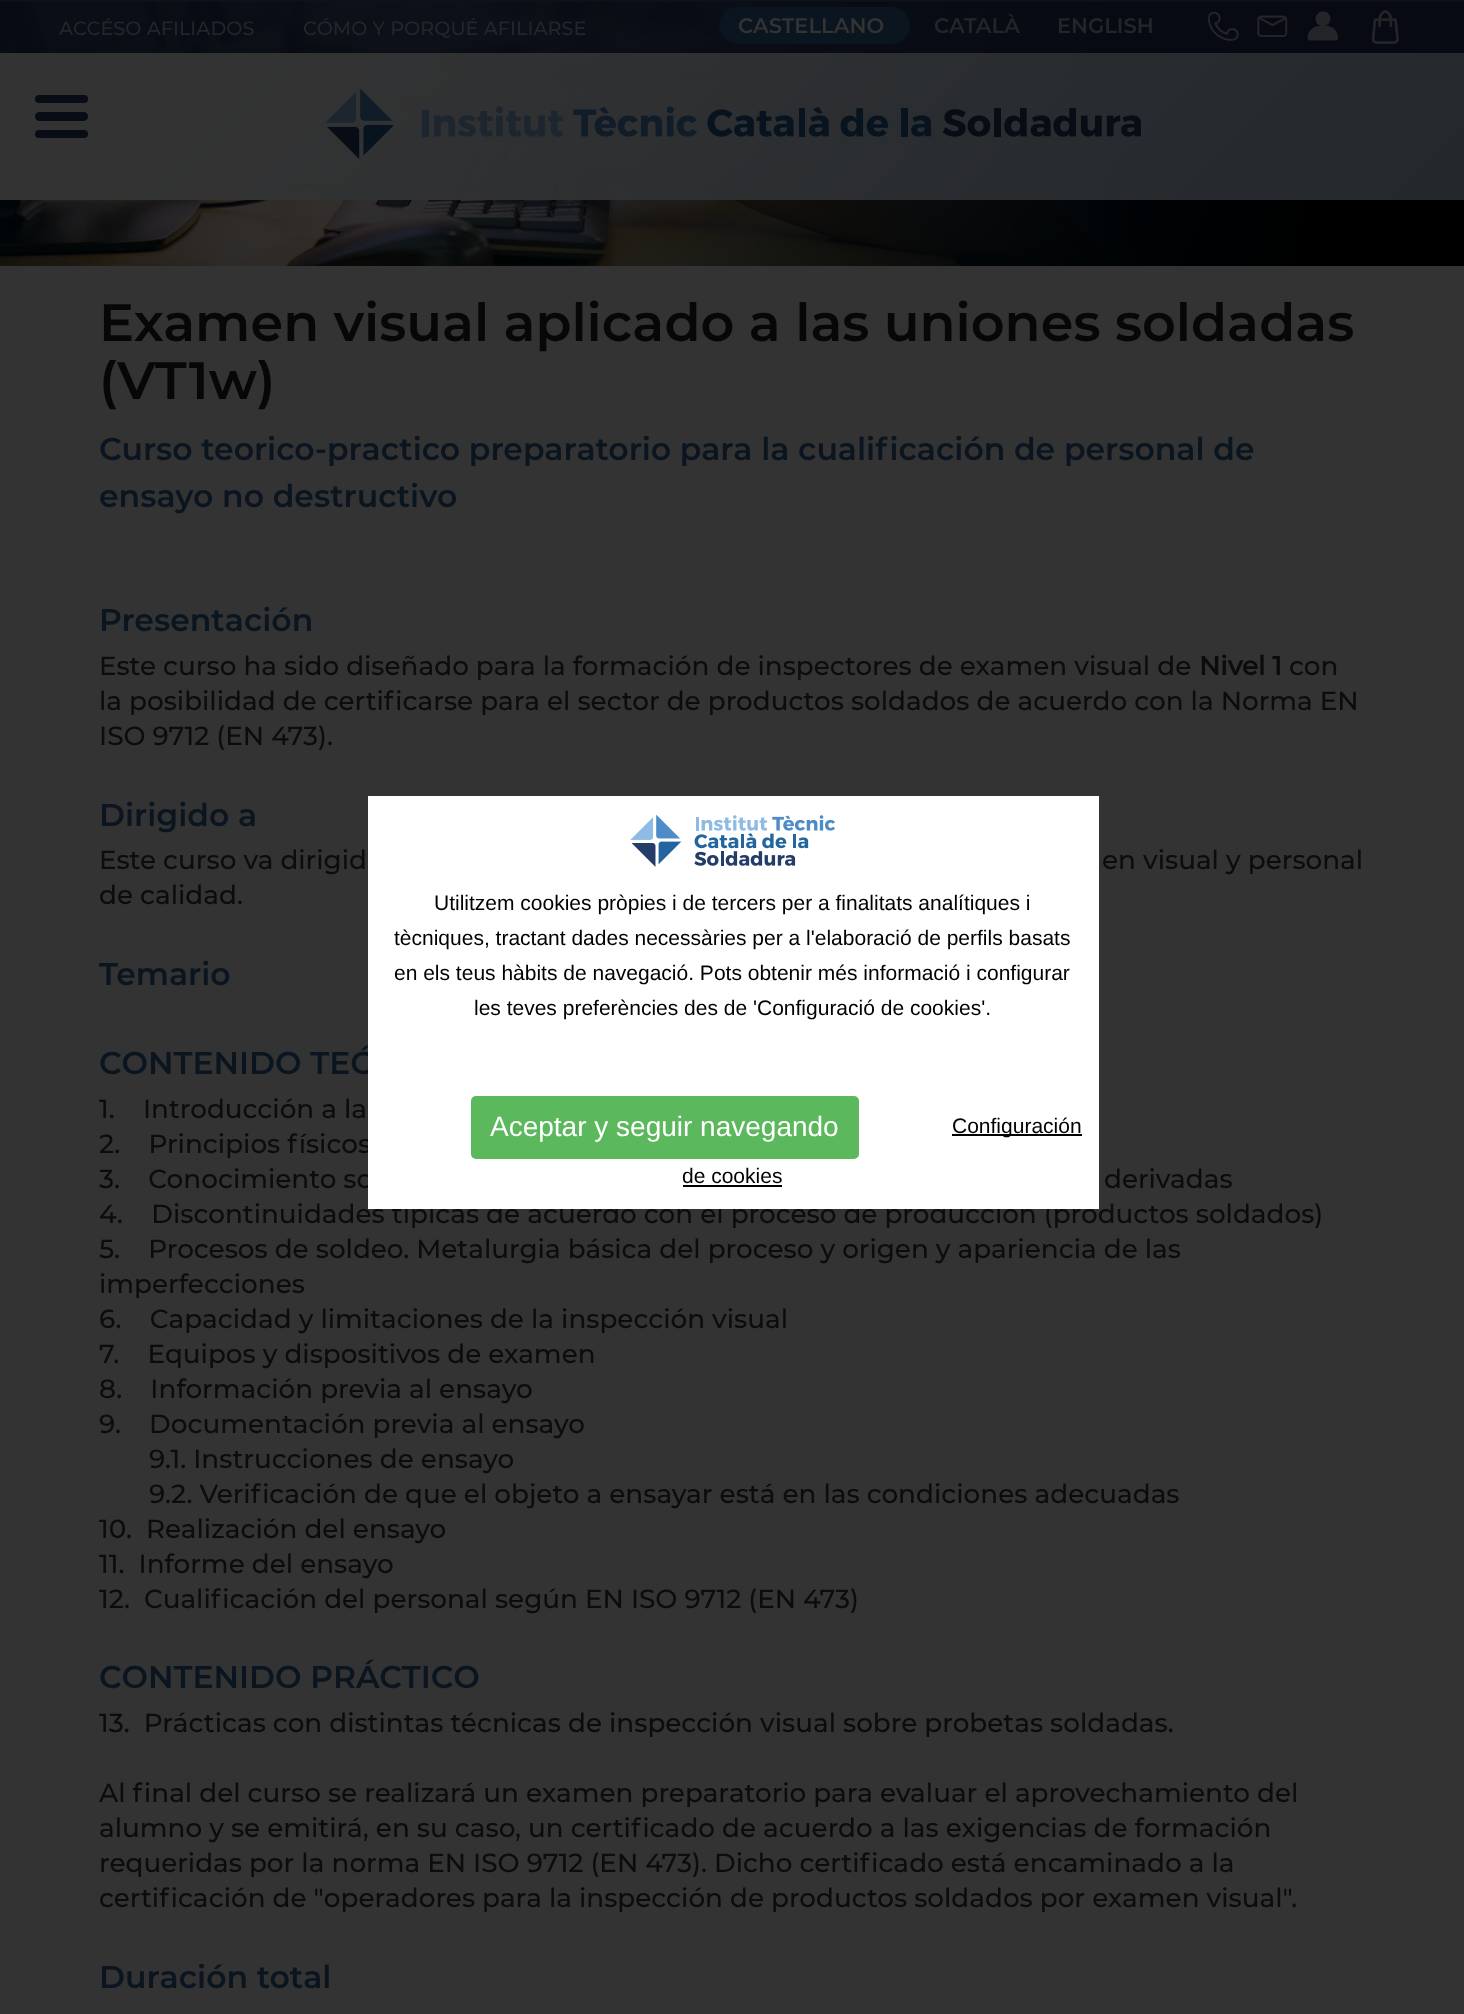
<!DOCTYPE html>
<meta charset="utf-8">
<style>body { margin: 0 } canvas { display: block }</style>
<canvas id="canvas" width="1464" height="2014"></canvas>
<img id="img1" src="img_01.png" hidden>
<img id="img2" src="img_02.png" hidden>
<img id="img3" src="img_03.png" hidden>
<img id="img4" src="img_04.png" hidden>
<img id="img5" src="img_05.png" hidden>
<img id="img6" src="img_06.png" hidden>
<img id="img7" src="img_07.png" hidden>
<script>
window.onload = function () {
	const canvas = document.getElementById("canvas");
	const ctx = canvas.getContext("2d");
	ctx.miterLimit = 4;
	ctx.fontKerning = "normal";
	function txt(s, x, y) {
		ctx.fillText(s, x, y);
	}
	function fill(x, y, w, h) {
		ctx.fillRect(x, y, w, h);
	}
	function round(x, y, w, h, r) {
		ctx.beginPath();
		ctx.roundRect(x, y, w, h, r);
		ctx.fill();
	}
	function img(id, x, y, w, h) {
		ctx.drawImage(document.getElementById(id), x, y, w, h);
	}

	ctx.fillStyle = "#333333";
	fill(0, 0, 1464, 2014);
	img("img1", 0, 1, 1464, 265);
	ctx.fillStyle = "rgba(8, 12, 21, 0.85)";
	fill(0, 0, 1464, 53);
	ctx.fillStyle = "#0A1520";
	ctx.beginPath();
	ctx.roundRect(720, 8, 189, 35, 17.5);
	ctx.fill();
	ctx.strokeStyle = "#0A1520";
	ctx.lineWidth = 2;
	ctx.stroke();
	img("img2", 1208, 11, 31, 30);
	img("img3", 1257, 15, 31, 22);
	img("img4", 1307, 11, 32, 30);
	img("img5", 1371, 10, 28, 34);
	img("img6", 325, 88, 816, 71);
	ctx.fillStyle = "#080C15";
	round(35, 95, 53, 8, 4);
	round(35, 112, 53, 9, 4.5);
	round(35, 130, 53, 8, 4);
	ctx.font = "500 19.25px Montserrat";
	ctx.fillStyle = "#232629";
	txt("ACCÉSO AFILIADOS", 59, 35);
	txt("CÓMO Y PORQUÉ AFILIARSE", 303, 35);
	ctx.font = "600 21px Montserrat";
	ctx.fillStyle = "#333333";
	txt("CASTELLANO", 738, 33);
	ctx.fillStyle = "#232629";
	txt("CATALÀ", 934, 33);
	txt("ENGLISH", 1057, 33);
	ctx.font = "600 52.5px Montserrat";
	ctx.fillStyle = "#070707";
	txt("Examen visual aplicado a las uniones soldadas", 99, 341);
	txt("(VT1w)", 99, 399);
	ctx.font = "600 31.5px Montserrat";
	ctx.fillStyle = "#0A1520";
	txt("Curso teorico-practico preparatorio para la cualificación de personal de", 99, 460);
	txt("ensayo no destructivo", 99, 507);
	txt("Presentación", 99, 631);
	ctx.font = "500 26.25px Montserrat";
	ctx.fillStyle = "#0D0C0C";
	txt("Este curso ha sido diseñado para la formación de inspectores de examen visual de", 99, 675);
	ctx.font = "bold 26.25px Montserrat";
	txt("Nivel 1", 1199, 675);
	ctx.font = "500 26.25px Montserrat";
	txt("con", 1289, 675);
	txt("la posibilidad de certificarse para el sector de productos soldados de acuerdo con la Norma EN", 99, 710);
	txt("ISO 9712 (EN 473).", 99, 745);
	ctx.font = "600 31.5px Montserrat";
	ctx.fillStyle = "#0A1520";
	txt("Dirigido a", 99, 826);
	ctx.font = "500 26.25px Montserrat";
	ctx.fillStyle = "#0D0C0C";
	txt("Este curso va dirigid", 99, 869);
	txt("en visual y personal", 1102, 869);
	txt("de calidad.", 99, 904);
	ctx.font = "600 31.5px Montserrat";
	ctx.fillStyle = "#0A1520";
	txt("Temario", 99, 985);
	txt("CONTENIDO TEÓ", 99, 1074);
	ctx.font = "500 26.25px Montserrat";
	ctx.fillStyle = "#0D0C0C";
	txt("1.    Introducción a la", 99, 1118);
	txt("2.    Principios físicos", 99, 1153);
	txt("3.    Conocimiento so", 99, 1188);
	txt("derivadas", 1104, 1188);
	txt("4.    Discontinuidades típicas de acuerdo con el proceso de producción (productos soldados)", 99, 1223);
	txt("5.    Procesos de soldeo. Metalurgia básica del proceso y origen y apariencia de las", 99, 1258);
	txt("imperfecciones", 99, 1293);
	txt("6.    Capacidad y limitaciones de la inspección visual", 99, 1328);
	txt("7.    Equipos y dispositivos de examen", 99, 1363);
	txt("8.    Información previa al ensayo", 99, 1398);
	txt("9.    Documentación previa al ensayo", 99, 1433);
	txt("9.1. Instrucciones de ensayo", 149, 1468);
	txt("9.2. Verificación de que el objeto a ensayar está en las condiciones adecuadas", 149, 1503);
	txt("10.  Realización del ensayo", 99, 1538);
	txt("11.  Informe del ensayo", 99, 1573);
	txt("12.  Cualificación del personal según EN ISO 9712 (EN 473)", 99, 1608);
	ctx.font = "600 31.5px Montserrat";
	ctx.fillStyle = "#0A1520";
	txt("CONTENIDO PRÁCTICO", 99, 1688);
	ctx.font = "500 26.25px Montserrat";
	ctx.fillStyle = "#0D0C0C";
	txt("13.  Prácticas con distintas técnicas de inspección visual sobre probetas soldadas.", 99, 1732);
	txt("Al final del curso se realizará un examen preparatorio para evaluar el aprovechamiento del", 99, 1802);
	txt("alumno y se emitirá, en su caso, un certificado de acuerdo a las exigencias de formación", 99, 1837);
	txt("requeridas por la norma EN ISO 9712 (EN 473). Dicho certificado está encaminado a la", 99, 1872);
	txt("certificación de \"operadores para la inspección de productos soldados por examen visual\".", 99, 1907);
	ctx.font = "600 31.5px Montserrat";
	ctx.fillStyle = "#0A1520";
	txt("Duración total", 99, 1988);
	ctx.fillStyle = "#FFFFFF";
	fill(368, 796, 731, 413);
	img("img7", 630, 814, 205, 53);
	ctx.font = "21px Liberation Sans";
	ctx.fillStyle = "#000000";
	txt("Utilitzem cookies pròpies i de tercers per a finalitats analítiques i", 434, 910);
	txt("tècniques, tractant dades necessàries per a l'elaboració de perfils basats", 394, 945);
	txt("en els teus hàbits de navegació. Pots obtenir més informació i configurar", 394, 980);
	txt("les teves preferències des de 'Configuració de cookies'.", 474, 1015);
	ctx.fillStyle = "#5CB85C";
	ctx.beginPath();
	ctx.roundRect(472, 1097, 386, 61, 4);
	ctx.fill();
	ctx.strokeStyle = "#5CB85C";
	ctx.stroke();
	ctx.font = "28px Liberation Sans";
	ctx.fillStyle = "#FFFFFF";
	txt("Aceptar y seguir navegando", 490, 1136);
	ctx.fillStyle = "#000000";
	fill(952, 1134, 130, 2);
	ctx.font = "21px Liberation Sans";
	txt("Configuración", 952, 1133);
	txt("de cookies", 682, 1183);
	fill(683, 1185, 99, 2);
};
</script>
